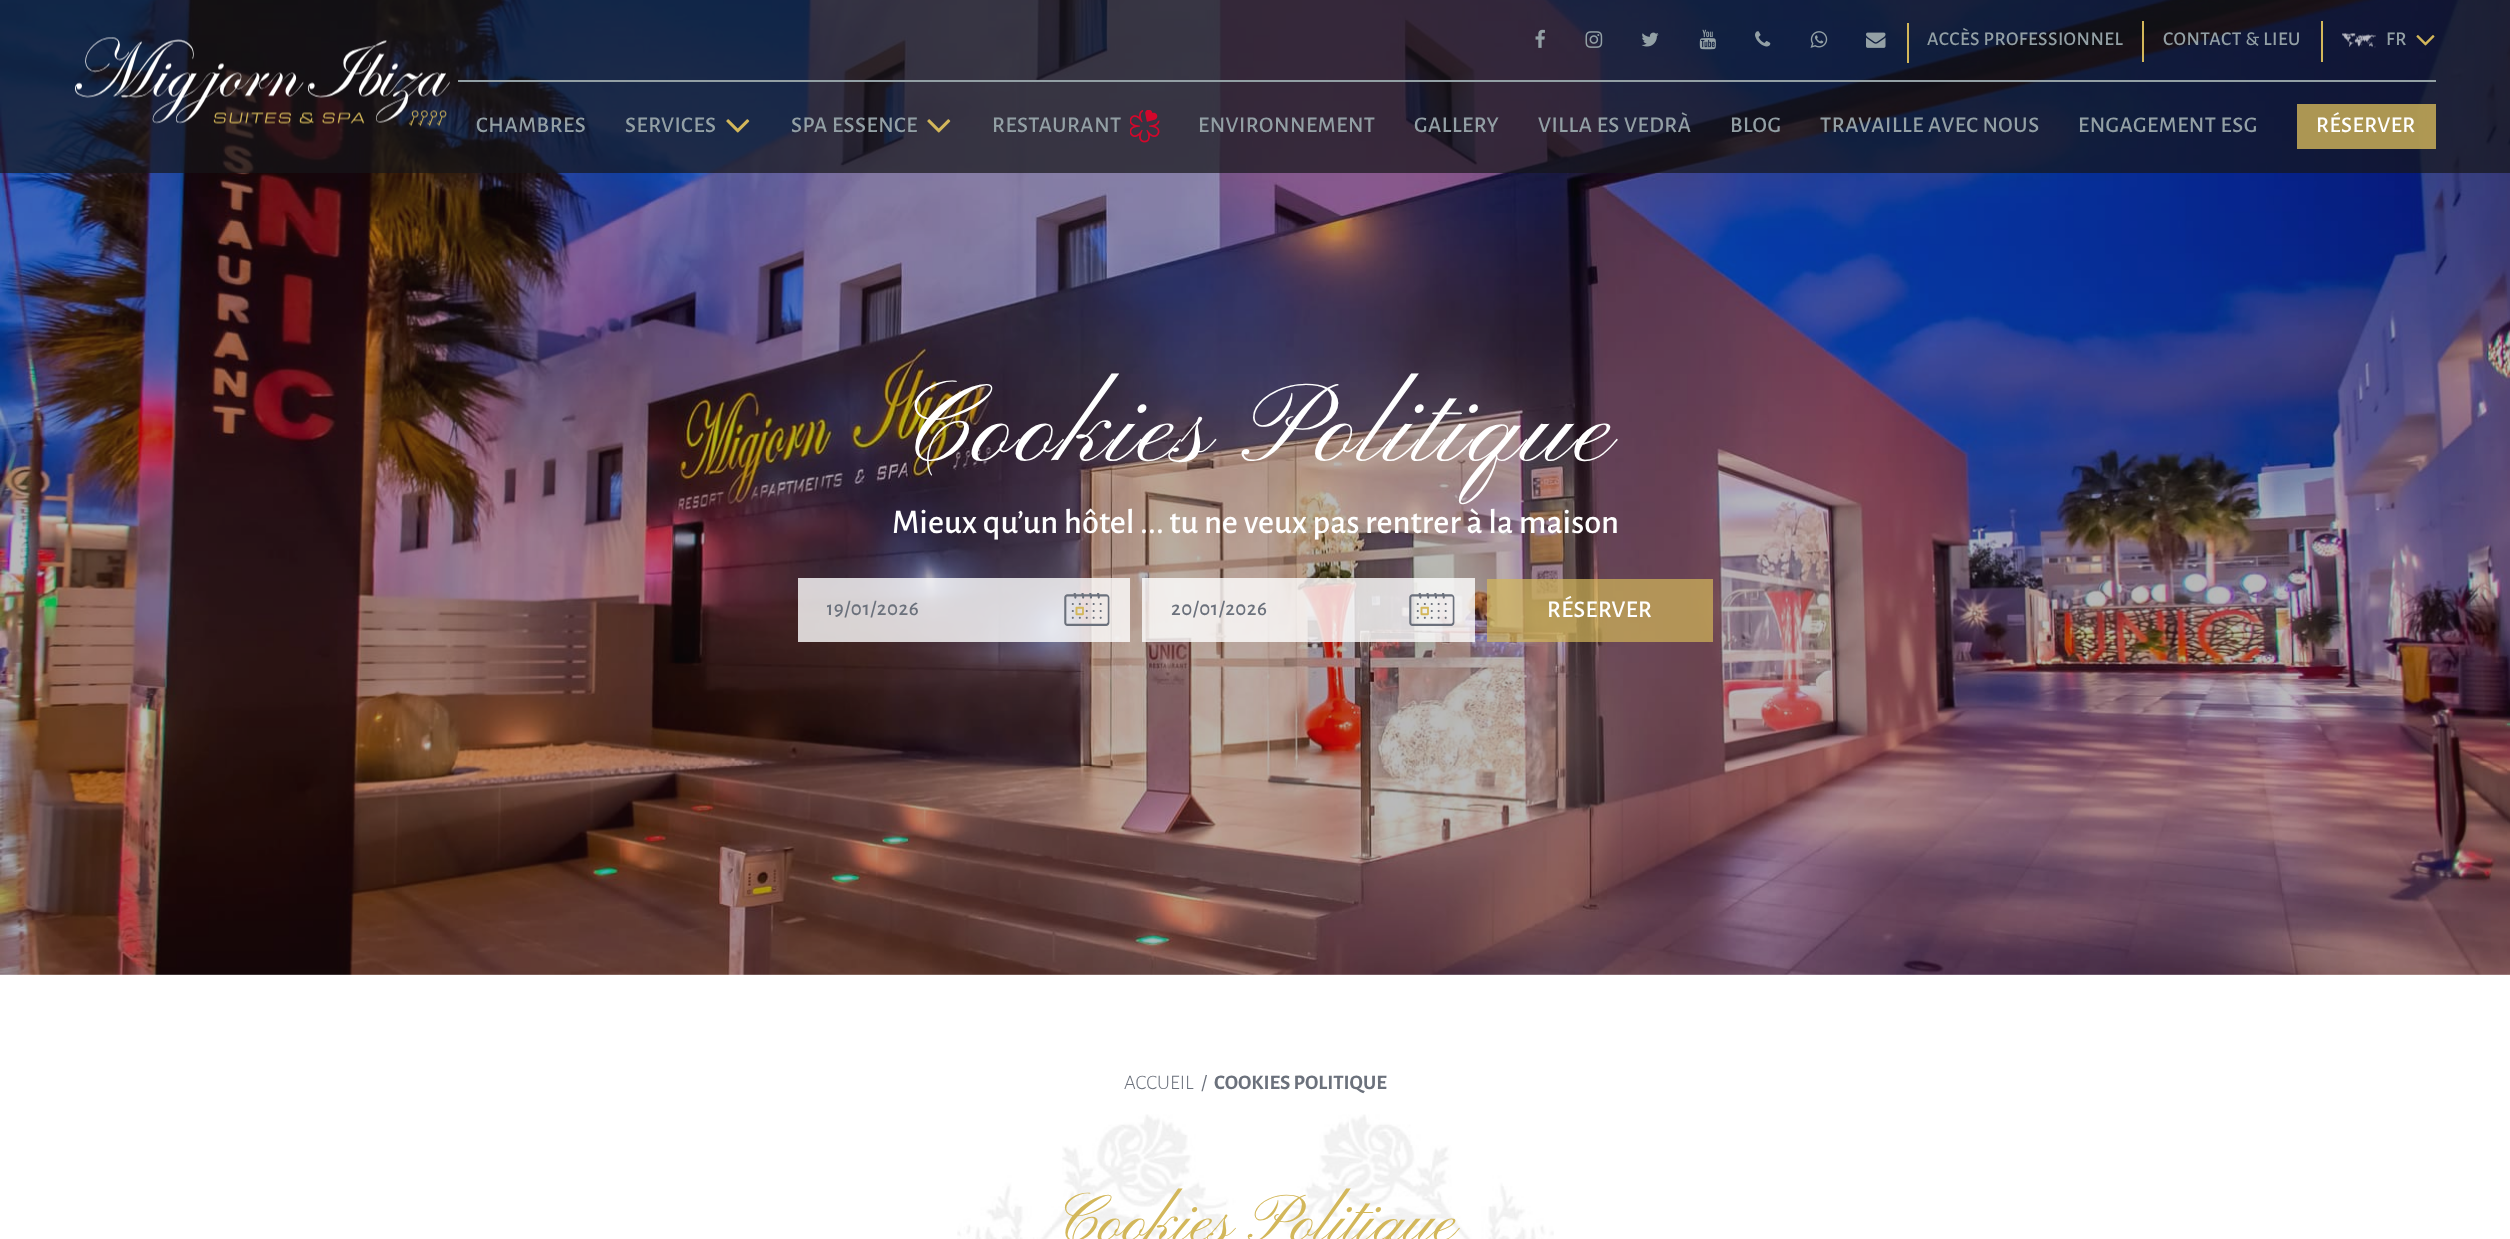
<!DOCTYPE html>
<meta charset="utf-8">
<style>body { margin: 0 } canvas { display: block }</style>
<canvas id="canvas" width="2510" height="1239"></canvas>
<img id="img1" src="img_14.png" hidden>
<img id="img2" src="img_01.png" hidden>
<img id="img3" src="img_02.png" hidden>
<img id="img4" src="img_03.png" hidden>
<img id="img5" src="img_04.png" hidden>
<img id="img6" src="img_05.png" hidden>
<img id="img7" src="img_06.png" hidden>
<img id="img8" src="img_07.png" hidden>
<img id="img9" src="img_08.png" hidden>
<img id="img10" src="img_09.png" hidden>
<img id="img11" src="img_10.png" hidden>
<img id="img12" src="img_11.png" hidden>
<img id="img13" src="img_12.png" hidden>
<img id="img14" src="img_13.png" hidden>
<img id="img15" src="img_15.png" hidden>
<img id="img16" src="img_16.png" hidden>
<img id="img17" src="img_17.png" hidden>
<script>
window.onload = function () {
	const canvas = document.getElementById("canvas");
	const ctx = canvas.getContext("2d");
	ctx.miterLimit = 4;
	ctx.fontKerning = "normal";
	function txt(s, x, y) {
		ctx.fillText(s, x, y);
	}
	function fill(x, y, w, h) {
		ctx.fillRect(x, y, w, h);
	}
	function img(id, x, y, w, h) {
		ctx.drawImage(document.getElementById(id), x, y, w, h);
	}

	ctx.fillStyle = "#FFFFFF";
	fill(0, 0, 2510, 1239);
	img("img1", 0, 0, 2510, 975);
	ctx.fillStyle = "rgba(21, 21, 24, 0.7)";
	fill(0, 0, 2510, 173);
	img("img2", 75, 37, 375, 90);
	img("img3", 1535, 29, 10, 19);
	img("img4", 1585, 31, 18, 17);
	img("img5", 1641, 32, 18, 15);
	img("img6", 1699, 29, 17, 21);
	img("img7", 1755, 31, 16, 16);
	img("img8", 1810, 31, 18, 17);
	ctx.fillStyle = "#D3B75A";
	fill(1907, 23, 2, 40);
	img("img9", 1866, 32, 20, 16);
	fill(2142, 21, 2, 41);
	fill(2321, 21, 2, 41);
	img("img10", 2342, 33, 34, 15);
	img("img11", 2416, 35, 19, 11);
	ctx.fillStyle = "#93A0A5";
	fill(458, 80, 1978, 2);
	img("img12", 726, 119, 24, 14);
	img("img13", 927, 119, 24, 14);
	img("img14", 1130, 110, 30, 33);
	ctx.fillStyle = "rgba(211, 183, 90, 0.8)";
	fill(2297, 104, 139, 45);
	ctx.fillStyle = "rgba(255, 255, 255, 0.8)";
	fill(798, 578, 332, 64);
	img("img15", 1064, 593, 46, 33);
	fill(1142, 578, 333, 64);
	img("img16", 1409, 593, 46, 33);
	ctx.fillStyle = "rgba(211, 183, 90, 0.7)";
	fill(1487, 579, 226, 63);
	img("img17", 957, 1114, 597, 125);
	ctx.letterSpacing = "0.5px";
	ctx.font = "500 19.5px Alegreya Sans";
	ctx.fillStyle = "#93A0A5";
	txt("ACCÈS PROFESSIONNEL", 1927, 45);
	txt("CONTACT & LIEU", 2163, 45);
	txt("FR", 2386, 45);
	ctx.letterSpacing = "0.6px";
	ctx.font = "500 22.5px Alegreya Sans";
	txt("CHAMBRES", 476, 132);
	txt("SERVICES", 625, 132);
	txt("SPA ESSENCE", 791, 132);
	txt("RESTAURANT", 992, 132);
	txt("ENVIRONNEMENT", 1198, 132);
	txt("GALLERY", 1414, 132);
	txt("VILLA ES VEDRÀ", 1538, 132);
	txt("BLOG", 1730, 132);
	txt("TRAVAILLE AVEC NOUS", 1820, 132);
	txt("ENGAGEMENT ESG", 2078, 132);
	ctx.fillStyle = "#FFFFFF";
	txt("RÉSERVER", 2316, 132);
	ctx.letterSpacing = "2.8px";
	ctx.font = "112.5px Pinyon Script";
	txt("Cookies Politique", 898, 461);
	ctx.letterSpacing = "0px";
	ctx.font = "500 34.5px Alegreya Sans";
	txt("Mieux qu’un hôtel ... tu ne veux pas rentrer à la maison", 892, 533);
	ctx.save();
	ctx.beginPath();
	ctx.rect(827, 597, 259, 26);
	ctx.clip();
	ctx.letterSpacing = "0.5px";
	ctx.font = "500 21px Alegreya Sans";
	ctx.fillStyle = "#6B717C";
	txt("19/01/2026", 826, 615);
	ctx.restore();
	ctx.letterSpacing = "0.5px";
	ctx.font = "500 21px Alegreya Sans";
	ctx.fillStyle = "#6B717C";
	txt("20/01/2026", 1171, 615);
	ctx.font = "500 24px Alegreya Sans";
	ctx.fillStyle = "#FFFFFF";
	txt("RÉSERVER", 1547, 617);
	ctx.letterSpacing = "0px";
	ctx.font = "300 20.75px Alegreya Sans";
	ctx.fillStyle = "#6B717C";
	txt("ACCUEIL", 1124, 1089);
	ctx.font = "20.75px Alegreya Sans";
	txt("/", 1201, 1089);
	ctx.font = "bold 20.75px Alegreya Sans";
	txt("COOKIES POLITIQUE", 1214, 1089);
	ctx.font = "67.5px Pinyon Script";
	ctx.fillStyle = "#D3B75A";
	txt("Cookies Politique", 1055, 1241);
};
</script>
